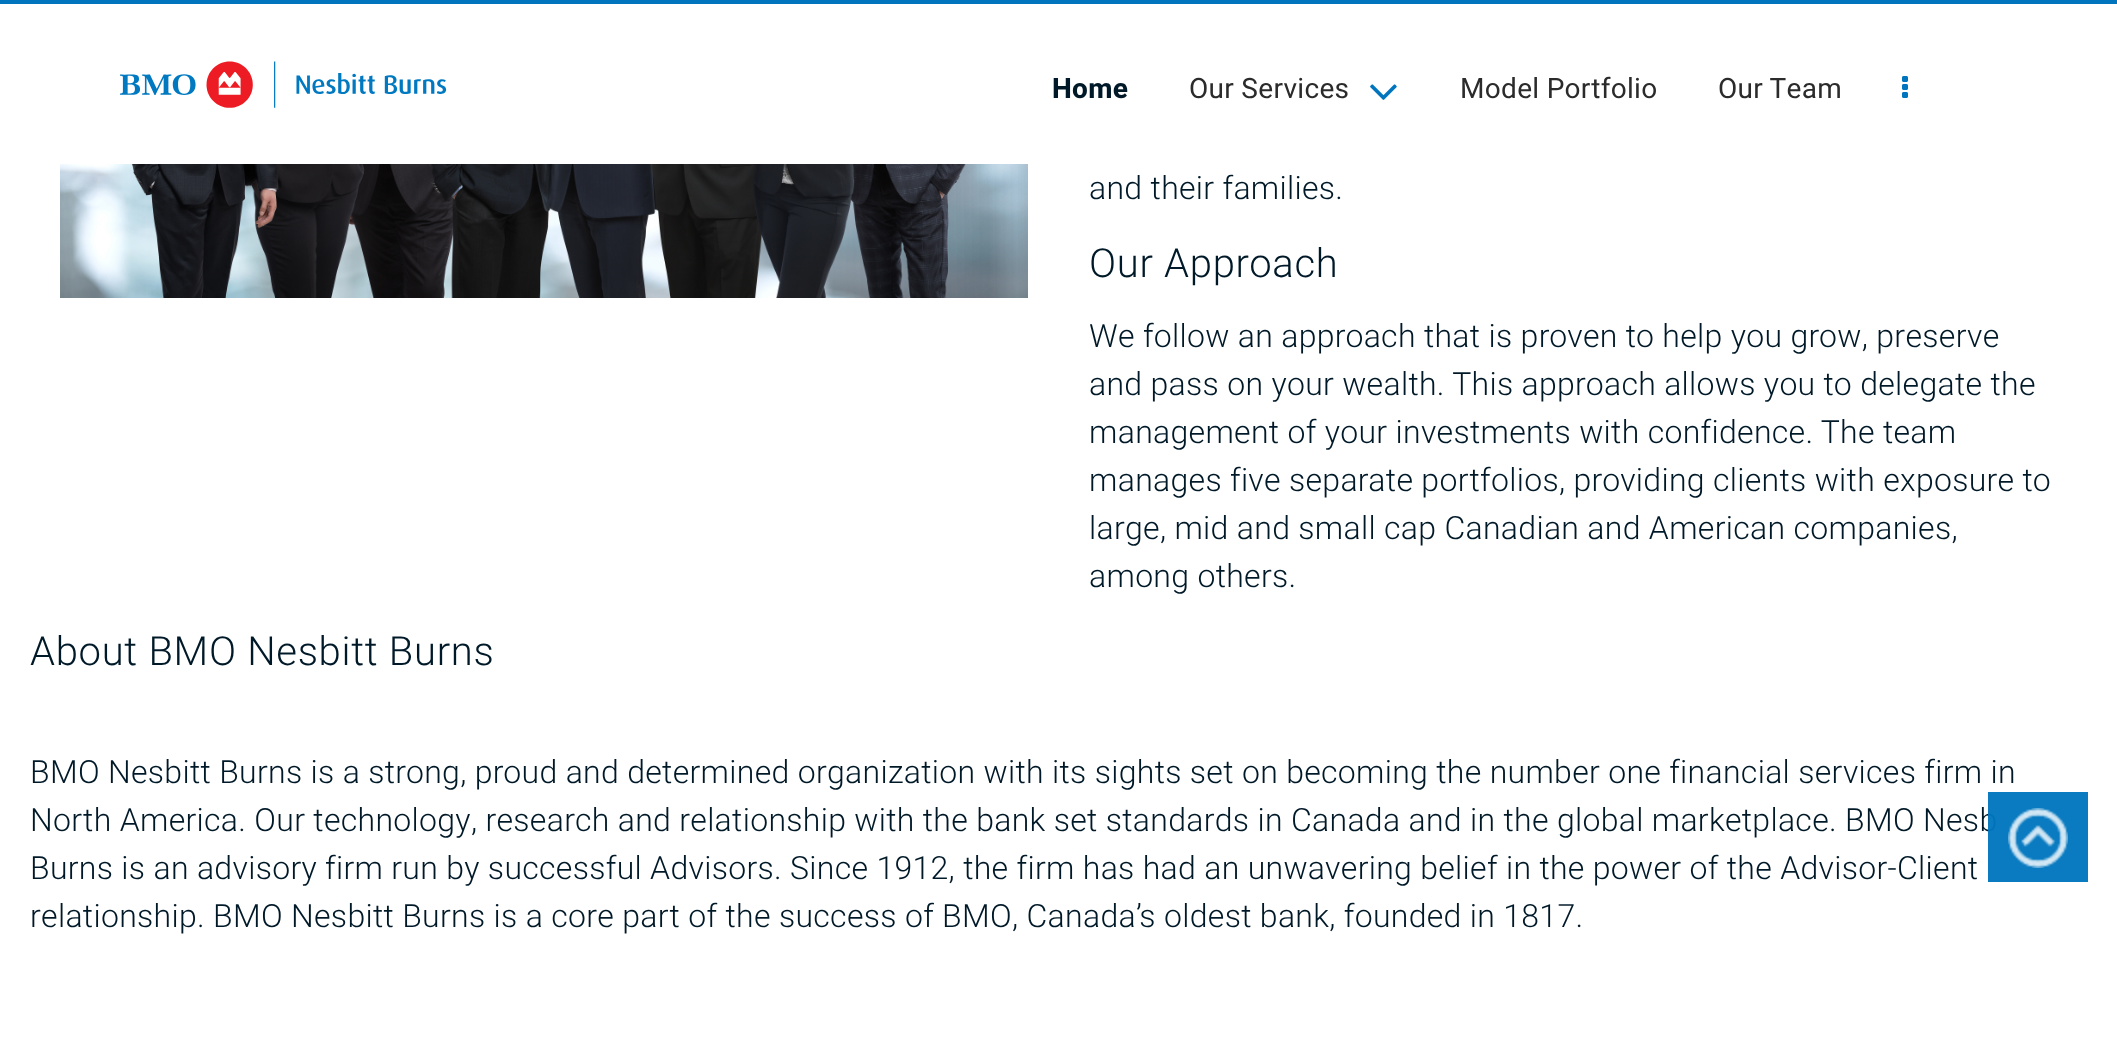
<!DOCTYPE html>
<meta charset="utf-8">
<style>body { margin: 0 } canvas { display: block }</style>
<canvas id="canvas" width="2117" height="1062"></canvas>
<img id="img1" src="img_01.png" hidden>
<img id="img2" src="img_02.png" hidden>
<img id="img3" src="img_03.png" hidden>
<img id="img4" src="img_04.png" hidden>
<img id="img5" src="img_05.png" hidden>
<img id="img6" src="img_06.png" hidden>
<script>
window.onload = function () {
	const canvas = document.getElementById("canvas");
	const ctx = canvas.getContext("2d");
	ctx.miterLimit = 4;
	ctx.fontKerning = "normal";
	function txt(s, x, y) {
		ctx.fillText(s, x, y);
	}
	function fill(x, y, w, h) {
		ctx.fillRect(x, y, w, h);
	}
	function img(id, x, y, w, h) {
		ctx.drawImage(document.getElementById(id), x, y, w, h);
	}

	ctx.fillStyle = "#FFFFFF";
	fill(0, 0, 2117, 1062);
	ctx.fillStyle = "#0075BE";
	fill(0, 0, 2117, 4);
	img("img1", 120, 61, 327, 47);
	img("img2", 1370, 84, 27, 16);
	img("img3", 1902, 76, 6, 22);
	img("img4", 60, 164, 968, 134);
	ctx.letterSpacing = "0.3px";
	ctx.font = "bold 28px Heebo";
	ctx.fillStyle = "#001928";
	txt("Home", 1052, 98);
	ctx.font = "28px Heebo";
	ctx.fillStyle = "#2B2B2B";
	txt("Our Services", 1189, 98);
	txt("Model Portfolio", 1460, 98);
	txt("Our Team", 1718, 98);
	ctx.font = "300 32px Heebo";
	ctx.fillStyle = "#001928";
	txt("and their families.", 1089, 199);
	ctx.letterSpacing = "0.7px";
	ctx.font = "300 40px Heebo";
	txt("Our Approach", 1089, 277);
	ctx.letterSpacing = "0.3px";
	ctx.font = "300 32px Heebo";
	txt("We follow an approach that is proven to help you grow, preserve", 1089, 347);
	txt("and pass on your wealth. This approach allows you to delegate the", 1089, 395);
	txt("management of your investments with confidence. The team", 1089, 443);
	txt("manages five separate portfolios, providing clients with exposure to", 1089, 491);
	txt("large, mid and small cap Canadian and American companies,", 1089, 539);
	txt("among others.", 1089, 587);
	ctx.letterSpacing = "0.7px";
	ctx.font = "300 40px Heebo";
	txt("About BMO Nesbitt Burns", 30, 665);
	ctx.letterSpacing = "0.3px";
	ctx.font = "300 32px Heebo";
	txt("BMO Nesbitt Burns is a strong, proud and determined organization with its sights set on becoming the number one financial services firm in", 30, 783);
	txt("North America. Our technology, research and relationship with the bank set standards in Canada and in the global marketplace. BMO Nesb", 30, 831);
	txt("Burns is an advisory firm run by successful Advisors. Since 1912, the firm has had an unwavering belief in the power of the Advisor-Client", 30, 879);
	txt("relationship. BMO Nesbitt Burns is a core part of the success of BMO, Canada’s oldest bank, founded in 1817.", 30, 927);
	ctx.fillStyle = "rgba(0, 117, 190, 0.8)";
	fill(1988, 792, 100, 90);
	img("img5", 2008, 808, 60, 60);
	fill(1988, 792, 100, 90);
	img("img6", 2008, 808, 60, 60);
};
</script>
